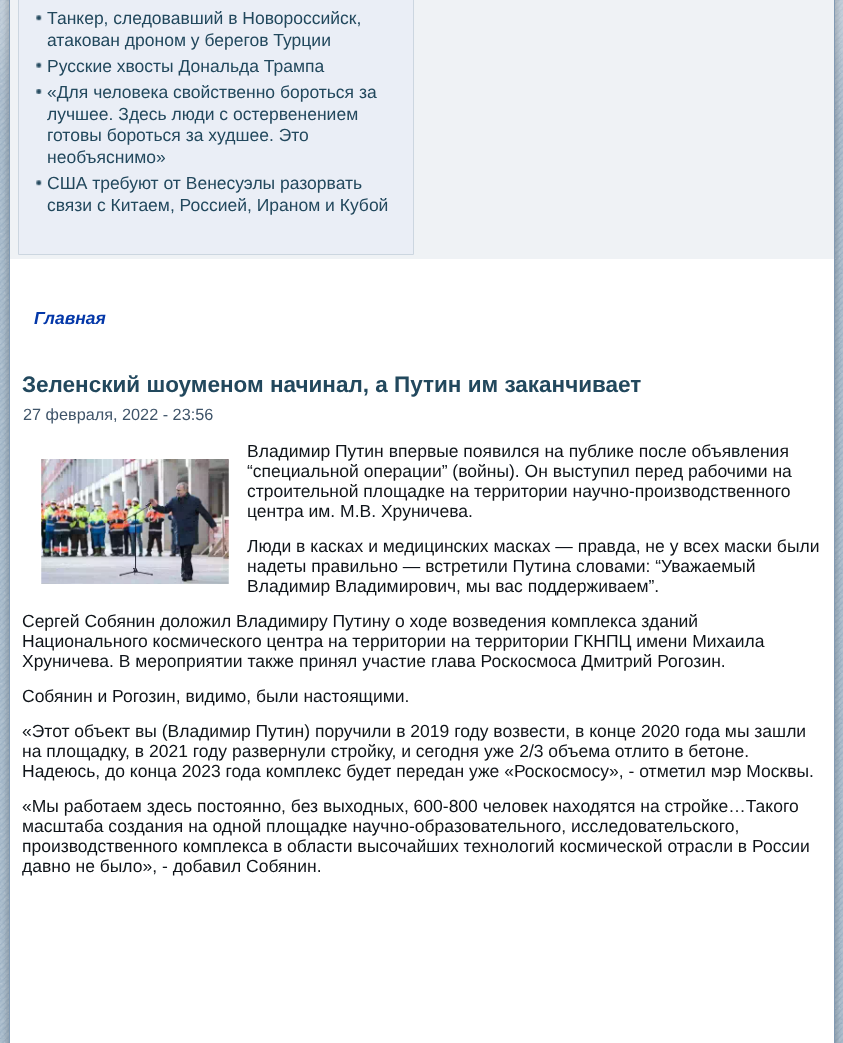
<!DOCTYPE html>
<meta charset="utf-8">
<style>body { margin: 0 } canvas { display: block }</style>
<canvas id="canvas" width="843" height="1043"></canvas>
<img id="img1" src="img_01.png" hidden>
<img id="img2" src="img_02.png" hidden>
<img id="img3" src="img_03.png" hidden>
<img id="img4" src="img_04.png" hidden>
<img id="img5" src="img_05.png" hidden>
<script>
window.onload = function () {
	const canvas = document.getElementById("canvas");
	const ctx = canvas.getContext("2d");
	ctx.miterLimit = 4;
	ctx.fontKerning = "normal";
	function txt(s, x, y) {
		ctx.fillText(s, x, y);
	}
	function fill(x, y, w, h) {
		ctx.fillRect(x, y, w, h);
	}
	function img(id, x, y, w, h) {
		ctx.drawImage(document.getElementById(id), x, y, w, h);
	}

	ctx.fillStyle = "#B2C2D1";
	fill(0, 0, 843, 1043);
	img("img1", 0, 0, 843, 1043);
	ctx.fillStyle = "rgba(0, 0, 0, 0.15)";
	ctx.filter = "blur(2px)";
	ctx.beginPath();
	ctx.roundRect(6, -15, 832, 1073, 9);
	ctx.fill();
	ctx.filter = "none";
	ctx.fillStyle = "#FFFFFF";
	fill(10, 259, 824, 784);
	ctx.fillStyle = "#8099B3";
	ctx.beginPath();
	ctx.moveTo(15, -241);
	ctx.lineTo(829, -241);
	ctx.bezierCurveTo(832, -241, 835, -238, 835, -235);
	ctx.lineTo(835, 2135);
	ctx.lineTo(9, 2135);
	ctx.lineTo(9, -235);
	ctx.bezierCurveTo(9, -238, 12, -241, 15, -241);
	ctx.closePath();
	ctx.moveTo(15, -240);
	ctx.lineTo(829, -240);
	ctx.bezierCurveTo(832, -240, 834, -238, 834, -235);
	ctx.lineTo(834, 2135);
	ctx.lineTo(10, 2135);
	ctx.lineTo(10, -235);
	ctx.bezierCurveTo(10, -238, 12, -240, 15, -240);
	ctx.closePath();
	ctx.fill("evenodd");
	ctx.fillStyle = "#EFF2F5";
	fill(10, 0, 824, 259);
	ctx.fillStyle = "#EAEEF6";
	ctx.beginPath();
	ctx.rect(18.5, -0.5, 395, 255);
	ctx.fill();
	ctx.strokeStyle = "#CCD6E0";
	ctx.stroke();
	img("img2", 36, 15, 6, 6);
	img("img3", 36, 62, 6, 6);
	img("img4", 36, 89, 6, 5);
	img("img2", 36, 180, 6, 6);
	img("img5", 41, 459, 188, 125);
	ctx.font = "17.5px Liberation Sans";
	ctx.fillStyle = "#22485D";
	txt("Танкер, следовавший в Новороссийск,", 47, 24);
	txt("атакован дроном у берегов Турции", 47, 46);
	txt("Русские хвосты Дональда Трампа", 47, 72);
	txt("«Для человека свойственно бороться за", 47, 98);
	txt("лучшее. Здесь люди с остервенением", 47, 120);
	txt("готовы бороться за худшее. Это", 47, 141);
	txt("необъяснимо»", 47, 163);
	txt("США требуют от Венесуэлы разорвать", 47, 189);
	txt("связи с Китаем, Россией, Ираном и Кубой", 47, 211);
	ctx.font = "italic bold 17.5px Liberation Sans";
	ctx.fillStyle = "#0438A9";
	txt("Главная", 34, 324);
	ctx.font = "bold 22.5px Liberation Sans";
	ctx.fillStyle = "#22485D";
	txt("Зеленский шоуменом начинал, а Путин им заканчивает", 22, 392);
	ctx.font = "16.25px Liberation Sans";
	ctx.fillStyle = "#3F5469";
	txt("27 февраля, 2022 - 23:56", 23, 420);
	ctx.font = "17.5px Liberation Sans";
	ctx.fillStyle = "#0F1419";
	txt("Владимир Путин впервые появился на публике после объявления", 247, 457);
	txt("“специальной операции” (войны). Он выступил перед рабочими на", 247, 477);
	txt("строительной площадке на территории научно-производственного", 247, 497);
	txt("центра им. М.В. Хруничева.", 247, 517);
	txt("Люди в касках и медицинских масках — правда, не у всех маски были", 247, 552);
	txt("надеты правильно — встретили Путина словами: “Уважаемый", 247, 572);
	txt("Владимир Владимирович, мы вас поддерживаем”.", 247, 592);
	txt("Сергей Собянин доложил Владимиру Путину о ходе возведения комплекса зданий", 22, 627);
	txt("Национального космического центра на территории на территории ГКНПЦ имени Михаила", 22, 647);
	txt("Хруничева. В мероприятии также принял участие глава Роскосмоса Дмитрий Рогозин.", 22, 667);
	txt("Собянин и Рогозин, видимо, были настоящими.", 22, 702);
	txt("«Этот объект вы (Владимир Путин) поручили в 2019 году возвести, в конце 2020 года мы зашли", 22, 737);
	txt("на площадку, в 2021 году развернули стройку, и сегодня уже 2/3 объема отлито в бетоне.", 22, 757);
	txt("Надеюсь, до конца 2023 года комплекс будет передан уже «Роскосмосу», - отметил мэр Москвы.", 22, 777);
	txt("«Мы работаем здесь постоянно, без выходных, 600-800 человек находятся на стройке…Такого", 22, 812);
	txt("масштаба создания на одной площадке научно-образовательного, исследовательского,", 22, 832);
	txt("производственного комплекса в области высочайших технологий космической отрасли в России", 22, 852);
	txt("давно не было», - добавил Собянин.", 22, 872);
};
</script>
